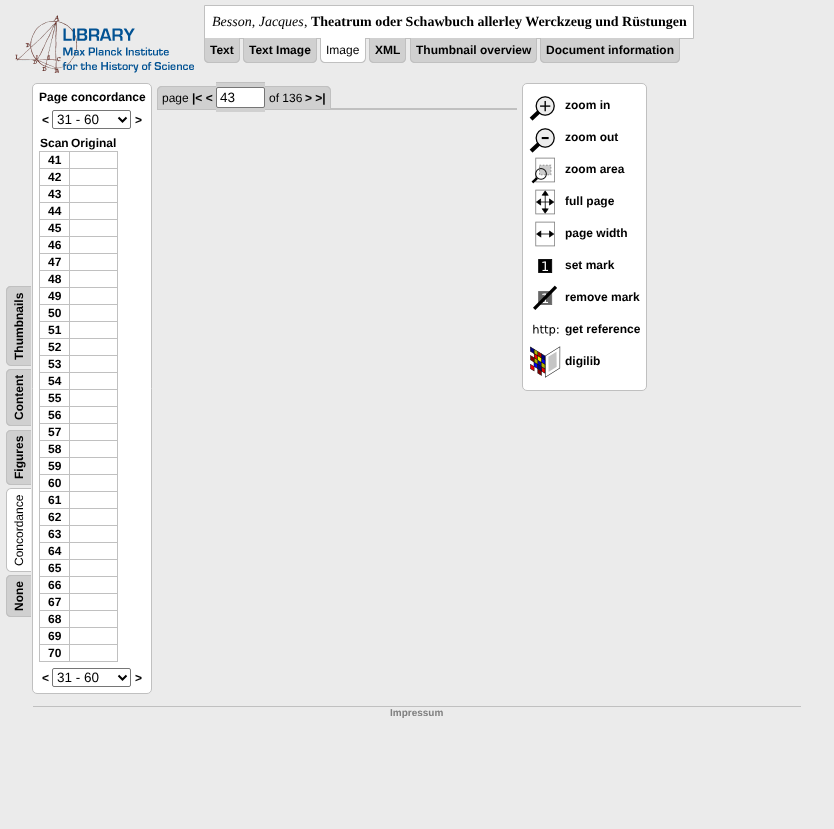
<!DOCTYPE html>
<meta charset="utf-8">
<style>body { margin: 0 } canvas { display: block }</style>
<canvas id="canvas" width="834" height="829"></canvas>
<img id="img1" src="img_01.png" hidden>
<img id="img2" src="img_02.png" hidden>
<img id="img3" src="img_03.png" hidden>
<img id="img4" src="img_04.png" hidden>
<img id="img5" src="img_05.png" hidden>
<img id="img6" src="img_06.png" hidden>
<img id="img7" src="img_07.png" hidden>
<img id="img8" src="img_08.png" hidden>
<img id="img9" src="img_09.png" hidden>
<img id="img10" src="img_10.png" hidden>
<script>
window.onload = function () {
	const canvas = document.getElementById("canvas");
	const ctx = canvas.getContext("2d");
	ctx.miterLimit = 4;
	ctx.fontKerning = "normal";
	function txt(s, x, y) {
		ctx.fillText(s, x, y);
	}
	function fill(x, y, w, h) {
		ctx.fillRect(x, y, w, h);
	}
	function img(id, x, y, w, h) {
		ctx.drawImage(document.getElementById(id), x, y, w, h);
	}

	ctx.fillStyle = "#EBEBEB";
	fill(0, 0, 834, 829);
	img("img1", 15, 15, 179, 58);
	ctx.fillStyle = "#FFFFFF";
	ctx.beginPath();
	ctx.rect(204.5, 5.5, 489, 33);
	ctx.fill();
	ctx.strokeStyle = "#C0C0C0";
	ctx.stroke();
	ctx.fillStyle = "#D0D0D0";
	ctx.beginPath();
	ctx.roundRect(204, 38, 36, 25, [0, 0, 5, 5]);
	ctx.fill();
	ctx.fillStyle = "#C0C0C0";
	ctx.beginPath();
	ctx.moveTo(204, 38);
	ctx.lineTo(240, 38);
	ctx.lineTo(240, 58);
	ctx.bezierCurveTo(240, 61, 238, 63, 235, 63);
	ctx.lineTo(209, 63);
	ctx.bezierCurveTo(206, 63, 204, 61, 204, 58);
	ctx.closePath();
	ctx.moveTo(205, 38);
	ctx.lineTo(239, 38);
	ctx.lineTo(239, 58);
	ctx.bezierCurveTo(239, 60, 237, 62, 235, 62);
	ctx.lineTo(209, 62);
	ctx.bezierCurveTo(207, 62, 205, 60, 205, 58);
	ctx.closePath();
	ctx.fill("evenodd");
	ctx.fillStyle = "#D0D0D0";
	ctx.beginPath();
	ctx.roundRect(243, 38, 74, 25, [0, 0, 5, 5]);
	ctx.fill();
	ctx.fillStyle = "#C0C0C0";
	ctx.beginPath();
	ctx.moveTo(243, 38);
	ctx.lineTo(317, 38);
	ctx.lineTo(317, 58);
	ctx.bezierCurveTo(317, 61, 315, 63, 312, 63);
	ctx.lineTo(248, 63);
	ctx.bezierCurveTo(245, 63, 243, 61, 243, 58);
	ctx.closePath();
	ctx.moveTo(244, 38);
	ctx.lineTo(316, 38);
	ctx.lineTo(316, 58);
	ctx.bezierCurveTo(316, 60, 314, 62, 312, 62);
	ctx.lineTo(248, 62);
	ctx.bezierCurveTo(246, 62, 244, 60, 244, 58);
	ctx.closePath();
	ctx.fill("evenodd");
	ctx.fillStyle = "#FFFFFF";
	ctx.beginPath();
	ctx.roundRect(320, 38, 46, 25, [0, 0, 5, 5]);
	ctx.fill();
	ctx.fillStyle = "#C0C0C0";
	ctx.beginPath();
	ctx.moveTo(320, 38);
	ctx.lineTo(366, 38);
	ctx.lineTo(366, 58);
	ctx.bezierCurveTo(366, 61, 364, 63, 361, 63);
	ctx.lineTo(325, 63);
	ctx.bezierCurveTo(322, 63, 320, 61, 320, 58);
	ctx.closePath();
	ctx.moveTo(321, 38);
	ctx.lineTo(365, 38);
	ctx.lineTo(365, 58);
	ctx.bezierCurveTo(365, 60, 363, 62, 361, 62);
	ctx.lineTo(325, 62);
	ctx.bezierCurveTo(323, 62, 321, 60, 321, 58);
	ctx.closePath();
	ctx.fill("evenodd");
	ctx.fillStyle = "#D0D0D0";
	ctx.beginPath();
	ctx.roundRect(369, 38, 37, 25, [0, 0, 5, 5]);
	ctx.fill();
	ctx.fillStyle = "#C0C0C0";
	ctx.beginPath();
	ctx.moveTo(369, 38);
	ctx.lineTo(406, 38);
	ctx.lineTo(406, 58);
	ctx.bezierCurveTo(406, 61, 404, 63, 401, 63);
	ctx.lineTo(374, 63);
	ctx.bezierCurveTo(371, 63, 369, 61, 369, 58);
	ctx.closePath();
	ctx.moveTo(370, 38);
	ctx.lineTo(405, 38);
	ctx.lineTo(405, 58);
	ctx.bezierCurveTo(405, 60, 403, 62, 401, 62);
	ctx.lineTo(374, 62);
	ctx.bezierCurveTo(372, 62, 370, 60, 370, 58);
	ctx.closePath();
	ctx.fill("evenodd");
	ctx.fillStyle = "#D0D0D0";
	ctx.beginPath();
	ctx.roundRect(410, 38, 127, 25, [0, 0, 5, 5]);
	ctx.fill();
	ctx.fillStyle = "#C0C0C0";
	ctx.beginPath();
	ctx.moveTo(410, 38);
	ctx.lineTo(537, 38);
	ctx.lineTo(537, 58);
	ctx.bezierCurveTo(537, 61, 535, 63, 532, 63);
	ctx.lineTo(415, 63);
	ctx.bezierCurveTo(412, 63, 410, 61, 410, 58);
	ctx.closePath();
	ctx.moveTo(411, 38);
	ctx.lineTo(536, 38);
	ctx.lineTo(536, 58);
	ctx.bezierCurveTo(536, 60, 534, 62, 532, 62);
	ctx.lineTo(415, 62);
	ctx.bezierCurveTo(413, 62, 411, 60, 411, 58);
	ctx.closePath();
	ctx.fill("evenodd");
	ctx.fillStyle = "#D0D0D0";
	ctx.beginPath();
	ctx.roundRect(540, 38, 140, 25, [0, 0, 5, 5]);
	ctx.fill();
	ctx.fillStyle = "#C0C0C0";
	ctx.beginPath();
	ctx.moveTo(540, 38);
	ctx.lineTo(680, 38);
	ctx.lineTo(680, 58);
	ctx.bezierCurveTo(680, 61, 678, 63, 675, 63);
	ctx.lineTo(545, 63);
	ctx.bezierCurveTo(542, 63, 540, 61, 540, 58);
	ctx.closePath();
	ctx.moveTo(541, 38);
	ctx.lineTo(679, 38);
	ctx.lineTo(679, 58);
	ctx.bezierCurveTo(679, 60, 677, 62, 675, 62);
	ctx.lineTo(545, 62);
	ctx.bezierCurveTo(543, 62, 541, 60, 541, 58);
	ctx.closePath();
	ctx.fill("evenodd");
	ctx.fillStyle = "#D0D0D0";
	ctx.beginPath();
	ctx.moveTo(6, 361);
	ctx.lineTo(6, 291);
	ctx.bezierCurveTo(6, 288, 8, 286, 11, 286);
	ctx.lineTo(31, 286);
	ctx.lineTo(31, 366);
	ctx.lineTo(11, 366);
	ctx.bezierCurveTo(8, 366, 6, 363, 6, 361);
	ctx.closePath();
	ctx.fill();
	ctx.fillStyle = "#C0C0C0";
	ctx.beginPath();
	ctx.moveTo(6, 361);
	ctx.lineTo(6, 291);
	ctx.bezierCurveTo(6, 288, 8, 286, 11, 286);
	ctx.lineTo(31, 286);
	ctx.lineTo(31, 366);
	ctx.lineTo(11, 366);
	ctx.bezierCurveTo(8, 366, 6, 363, 6, 361);
	ctx.closePath();
	ctx.moveTo(7, 361);
	ctx.lineTo(7, 291);
	ctx.bezierCurveTo(7, 289, 9, 287, 11, 287);
	ctx.lineTo(31, 287);
	ctx.lineTo(31, 365);
	ctx.lineTo(11, 365);
	ctx.bezierCurveTo(9, 365, 7, 363, 7, 361);
	ctx.closePath();
	ctx.fill("evenodd");
	ctx.fillStyle = "#D0D0D0";
	ctx.beginPath();
	ctx.moveTo(6, 421);
	ctx.lineTo(6, 374);
	ctx.bezierCurveTo(6, 371, 8, 369, 11, 369);
	ctx.lineTo(31, 369);
	ctx.lineTo(31, 426);
	ctx.lineTo(11, 426);
	ctx.bezierCurveTo(8, 426, 6, 424, 6, 421);
	ctx.closePath();
	ctx.fill();
	ctx.fillStyle = "#C0C0C0";
	ctx.beginPath();
	ctx.moveTo(6, 421);
	ctx.lineTo(6, 374);
	ctx.bezierCurveTo(6, 371, 8, 369, 11, 369);
	ctx.lineTo(31, 369);
	ctx.lineTo(31, 426);
	ctx.lineTo(11, 426);
	ctx.bezierCurveTo(8, 426, 6, 424, 6, 421);
	ctx.closePath();
	ctx.moveTo(7, 421);
	ctx.lineTo(7, 374);
	ctx.bezierCurveTo(7, 372, 9, 370, 11, 370);
	ctx.lineTo(31, 370);
	ctx.lineTo(31, 425);
	ctx.lineTo(11, 425);
	ctx.bezierCurveTo(9, 425, 7, 423, 7, 421);
	ctx.closePath();
	ctx.fill("evenodd");
	ctx.fillStyle = "#D0D0D0";
	ctx.beginPath();
	ctx.moveTo(6, 480);
	ctx.lineTo(6, 435);
	ctx.bezierCurveTo(6, 432, 8, 430, 11, 430);
	ctx.lineTo(31, 430);
	ctx.lineTo(31, 485);
	ctx.lineTo(11, 485);
	ctx.bezierCurveTo(8, 485, 6, 483, 6, 480);
	ctx.closePath();
	ctx.fill();
	ctx.fillStyle = "#C0C0C0";
	ctx.beginPath();
	ctx.moveTo(6, 480);
	ctx.lineTo(6, 435);
	ctx.bezierCurveTo(6, 432, 8, 430, 11, 430);
	ctx.lineTo(31, 430);
	ctx.lineTo(31, 485);
	ctx.lineTo(11, 485);
	ctx.bezierCurveTo(8, 485, 6, 483, 6, 480);
	ctx.closePath();
	ctx.moveTo(7, 480);
	ctx.lineTo(7, 435);
	ctx.bezierCurveTo(7, 432, 9, 431, 11, 431);
	ctx.lineTo(31, 431);
	ctx.lineTo(31, 484);
	ctx.lineTo(11, 484);
	ctx.bezierCurveTo(9, 484, 7, 482, 7, 480);
	ctx.closePath();
	ctx.fill("evenodd");
	ctx.fillStyle = "#FFFFFF";
	ctx.beginPath();
	ctx.moveTo(6, 567);
	ctx.lineTo(6, 493);
	ctx.bezierCurveTo(6, 491, 8, 488, 11, 488);
	ctx.lineTo(31, 488);
	ctx.lineTo(31, 572);
	ctx.lineTo(11, 572);
	ctx.bezierCurveTo(8, 572, 6, 569, 6, 567);
	ctx.closePath();
	ctx.fill();
	ctx.fillStyle = "#C0C0C0";
	ctx.beginPath();
	ctx.moveTo(6, 567);
	ctx.lineTo(6, 493);
	ctx.bezierCurveTo(6, 491, 8, 488, 11, 488);
	ctx.lineTo(31, 488);
	ctx.lineTo(31, 572);
	ctx.lineTo(11, 572);
	ctx.bezierCurveTo(8, 572, 6, 569, 6, 567);
	ctx.closePath();
	ctx.moveTo(7, 567);
	ctx.lineTo(7, 493);
	ctx.bezierCurveTo(7, 491, 9, 489, 11, 489);
	ctx.lineTo(31, 489);
	ctx.lineTo(31, 571);
	ctx.lineTo(11, 571);
	ctx.bezierCurveTo(9, 571, 7, 569, 7, 567);
	ctx.closePath();
	ctx.fill("evenodd");
	ctx.fillStyle = "#D0D0D0";
	ctx.beginPath();
	ctx.moveTo(6, 612);
	ctx.lineTo(6, 580);
	ctx.bezierCurveTo(6, 577, 8, 575, 11, 575);
	ctx.lineTo(31, 575);
	ctx.lineTo(31, 617);
	ctx.lineTo(11, 617);
	ctx.bezierCurveTo(8, 617, 6, 615, 6, 612);
	ctx.closePath();
	ctx.fill();
	ctx.fillStyle = "#C0C0C0";
	ctx.beginPath();
	ctx.moveTo(6, 612);
	ctx.lineTo(6, 580);
	ctx.bezierCurveTo(6, 577, 8, 575, 11, 575);
	ctx.lineTo(31, 575);
	ctx.lineTo(31, 617);
	ctx.lineTo(11, 617);
	ctx.bezierCurveTo(8, 617, 6, 615, 6, 612);
	ctx.closePath();
	ctx.moveTo(7, 612);
	ctx.lineTo(7, 580);
	ctx.bezierCurveTo(7, 578, 9, 576, 11, 576);
	ctx.lineTo(31, 576);
	ctx.lineTo(31, 616);
	ctx.lineTo(11, 616);
	ctx.bezierCurveTo(9, 616, 7, 614, 7, 612);
	ctx.closePath();
	ctx.fill("evenodd");
	ctx.fillStyle = "#FFFFFF";
	ctx.beginPath();
	ctx.roundRect(32.5, 83.5, 119, 610, 4.5);
	ctx.fill();
	ctx.stroke();
	ctx.beginPath();
	ctx.roundRect(52.5, 110.5, 78, 18, 1.5);
	ctx.strokeStyle = "#767676";
	ctx.stroke();
	ctx.beginPath();
	ctx.moveTo(118.5, 117.5);
	ctx.lineTo(122.5, 121.5);
	ctx.lineTo(126.5, 117.5);
	ctx.strokeStyle = "#000000";
	ctx.lineWidth = 2;
	ctx.stroke();
	ctx.fillStyle = "#C0C0C0";
	fill(69, 151, 49, 1);
	fill(69, 168, 49, 1);
	fill(69, 185, 49, 1);
	fill(69, 202, 49, 1);
	fill(69, 219, 49, 1);
	fill(69, 236, 49, 1);
	fill(69, 253, 49, 1);
	fill(69, 270, 49, 1);
	fill(69, 287, 49, 1);
	fill(69, 304, 49, 1);
	fill(69, 321, 49, 1);
	fill(69, 338, 49, 1);
	fill(69, 355, 49, 1);
	fill(69, 372, 49, 1);
	fill(69, 389, 49, 1);
	fill(69, 406, 49, 1);
	fill(69, 423, 49, 1);
	fill(69, 440, 49, 1);
	fill(69, 457, 49, 1);
	fill(69, 474, 49, 1);
	fill(69, 491, 49, 1);
	fill(69, 508, 49, 1);
	fill(69, 525, 49, 1);
	fill(69, 542, 49, 1);
	fill(69, 559, 49, 1);
	fill(69, 576, 49, 1);
	fill(69, 593, 49, 1);
	fill(69, 610, 49, 1);
	fill(69, 627, 49, 1);
	fill(69, 644, 49, 1);
	fill(117, 644, 1, 18);
	fill(69, 661, 49, 1);
	fill(69, 644, 1, 18);
	fill(39, 644, 31, 1);
	fill(69, 627, 1, 18);
	fill(39, 627, 31, 1);
	fill(69, 610, 1, 18);
	fill(39, 610, 31, 1);
	fill(69, 593, 1, 18);
	fill(39, 593, 31, 1);
	fill(69, 576, 1, 18);
	fill(39, 576, 31, 1);
	fill(69, 559, 1, 18);
	fill(39, 559, 31, 1);
	fill(69, 542, 1, 18);
	fill(39, 542, 31, 1);
	fill(69, 525, 1, 18);
	fill(39, 525, 31, 1);
	fill(69, 508, 1, 18);
	fill(39, 508, 31, 1);
	fill(69, 491, 1, 18);
	fill(39, 491, 31, 1);
	fill(69, 474, 1, 18);
	fill(39, 474, 31, 1);
	fill(69, 457, 1, 18);
	fill(39, 457, 31, 1);
	fill(69, 440, 1, 18);
	fill(39, 440, 31, 1);
	fill(69, 423, 1, 18);
	fill(39, 423, 31, 1);
	fill(69, 406, 1, 18);
	fill(39, 406, 31, 1);
	fill(69, 389, 1, 18);
	fill(39, 389, 31, 1);
	fill(69, 372, 1, 18);
	fill(39, 372, 31, 1);
	fill(69, 355, 1, 18);
	fill(39, 355, 31, 1);
	fill(69, 338, 1, 18);
	fill(39, 338, 31, 1);
	fill(69, 321, 1, 18);
	fill(39, 321, 31, 1);
	fill(69, 304, 1, 18);
	fill(39, 304, 31, 1);
	fill(69, 287, 1, 18);
	fill(39, 287, 31, 1);
	fill(69, 270, 1, 18);
	fill(39, 270, 31, 1);
	fill(69, 253, 1, 18);
	fill(39, 253, 31, 1);
	fill(69, 236, 1, 18);
	fill(39, 236, 31, 1);
	fill(69, 219, 1, 18);
	fill(39, 219, 31, 1);
	fill(69, 202, 1, 18);
	fill(39, 202, 31, 1);
	fill(69, 185, 1, 18);
	fill(39, 185, 31, 1);
	fill(69, 168, 1, 18);
	fill(39, 168, 31, 1);
	fill(69, 151, 1, 18);
	fill(39, 151, 31, 1);
	fill(39, 661, 31, 1);
	fill(39, 644, 1, 18);
	fill(39, 627, 1, 18);
	fill(39, 610, 1, 18);
	fill(39, 593, 1, 18);
	fill(39, 576, 1, 18);
	fill(39, 559, 1, 18);
	fill(39, 542, 1, 18);
	fill(39, 525, 1, 18);
	fill(39, 508, 1, 18);
	fill(39, 491, 1, 18);
	fill(39, 474, 1, 18);
	fill(39, 457, 1, 18);
	fill(39, 440, 1, 18);
	fill(39, 423, 1, 18);
	fill(39, 406, 1, 18);
	fill(39, 389, 1, 18);
	fill(39, 372, 1, 18);
	fill(39, 355, 1, 18);
	fill(39, 338, 1, 18);
	fill(39, 321, 1, 18);
	fill(39, 304, 1, 18);
	fill(39, 287, 1, 18);
	fill(39, 270, 1, 18);
	fill(39, 253, 1, 18);
	fill(39, 236, 1, 18);
	fill(39, 219, 1, 18);
	fill(39, 202, 1, 18);
	fill(39, 185, 1, 18);
	fill(39, 168, 1, 18);
	fill(39, 151, 1, 18);
	fill(117, 627, 1, 18);
	fill(117, 610, 1, 18);
	fill(117, 593, 1, 18);
	fill(117, 576, 1, 18);
	fill(117, 559, 1, 18);
	fill(117, 542, 1, 18);
	fill(117, 525, 1, 18);
	fill(117, 508, 1, 18);
	fill(117, 491, 1, 18);
	fill(117, 474, 1, 18);
	fill(117, 457, 1, 18);
	fill(117, 440, 1, 18);
	fill(117, 423, 1, 18);
	fill(117, 406, 1, 18);
	fill(117, 389, 1, 18);
	fill(117, 372, 1, 18);
	fill(117, 355, 1, 18);
	fill(117, 338, 1, 18);
	fill(117, 321, 1, 18);
	fill(117, 304, 1, 18);
	fill(117, 287, 1, 18);
	fill(117, 270, 1, 18);
	fill(117, 253, 1, 18);
	fill(117, 236, 1, 18);
	fill(117, 219, 1, 18);
	fill(117, 202, 1, 18);
	fill(117, 185, 1, 18);
	fill(117, 168, 1, 18);
	fill(117, 151, 1, 18);
	ctx.beginPath();
	ctx.roundRect(52.5, 668.5, 78, 18, 1.5);
	ctx.strokeStyle = "#767676";
	ctx.lineWidth = 1;
	ctx.stroke();
	ctx.beginPath();
	ctx.moveTo(118.5, 675.5);
	ctx.lineTo(122.5, 679.5);
	ctx.lineTo(126.5, 675.5);
	ctx.strokeStyle = "#000000";
	ctx.lineWidth = 2;
	ctx.stroke();
	fill(157, 108, 360, 2);
	ctx.fillStyle = "#D0D0D0";
	ctx.beginPath();
	ctx.roundRect(157, 86, 35, 23, [5, 0, 0, 0]);
	ctx.fill();
	ctx.fillStyle = "#C0C0C0";
	ctx.beginPath();
	ctx.moveTo(162, 86);
	ctx.lineTo(192, 86);
	ctx.lineTo(192, 109);
	ctx.lineTo(157, 109);
	ctx.lineTo(157, 91);
	ctx.bezierCurveTo(157, 88, 159, 86, 162, 86);
	ctx.closePath();
	ctx.moveTo(162, 87);
	ctx.lineTo(192, 87);
	ctx.lineTo(192, 109);
	ctx.lineTo(158, 109);
	ctx.lineTo(158, 91);
	ctx.bezierCurveTo(158, 89, 160, 87, 162, 87);
	ctx.closePath();
	ctx.fill("evenodd");
	ctx.fillStyle = "#D0D0D0";
	fill(192, 87, 11, 22);
	ctx.fillStyle = "#C0C0C0";
	fill(192, 86, 11, 1);
	ctx.fillStyle = "#D0D0D0";
	fill(203, 86, 13, 23);
	ctx.fillStyle = "#C0C0C0";
	fill(203, 86, 13, 1);
	ctx.fillStyle = "#D0D0D0";
	fill(216, 83, 49, 29);
	ctx.fillStyle = "#C0C0C0";
	fill(216, 82, 49, 1);
	ctx.fillStyle = "#D0D0D0";
	fill(265, 86, 4, 23);
	ctx.fillStyle = "#C0C0C0";
	fill(265, 86, 40, 1);
	ctx.fillStyle = "#D0D0D0";
	fill(269, 87, 36, 22);
	fill(305, 86, 11, 23);
	ctx.fillStyle = "#C0C0C0";
	fill(305, 86, 11, 1);
	ctx.fillStyle = "#D0D0D0";
	ctx.beginPath();
	ctx.roundRect(316, 86, 15, 23, [0, 5, 0, 0]);
	ctx.fill();
	ctx.fillStyle = "#C0C0C0";
	ctx.beginPath();
	ctx.moveTo(316, 86);
	ctx.lineTo(326, 86);
	ctx.bezierCurveTo(329, 86, 331, 88, 331, 91);
	ctx.lineTo(331, 109);
	ctx.lineTo(316, 109);
	ctx.closePath();
	ctx.moveTo(316, 87);
	ctx.lineTo(326, 87);
	ctx.bezierCurveTo(328, 87, 330, 89, 330, 91);
	ctx.lineTo(330, 109);
	ctx.lineTo(316, 109);
	ctx.closePath();
	ctx.fill("evenodd");
	ctx.fillStyle = "#FFFFFF";
	ctx.beginPath();
	ctx.roundRect(216.5, 87.5, 48, 20, 1.5);
	ctx.fill();
	ctx.strokeStyle = "#767676";
	ctx.lineWidth = 1;
	ctx.stroke();
	ctx.beginPath();
	ctx.roundRect(522.5, 83.5, 124, 307, 4.5);
	ctx.fill();
	ctx.strokeStyle = "#C0C0C0";
	ctx.stroke();
	img("img2", 529, 96, 26, 25);
	img("img3", 529, 128, 26, 25);
	img("img4", 531, 157, 24, 27);
	img("img5", 535, 189, 20, 26);
	img("img6", 535, 221, 20, 26);
	img("img7", 538, 259, 15, 14);
	img("img8", 533, 285, 24, 25);
	img("img9", 533, 324, 26, 12);
	img("img10", 530, 346, 31, 32);
	ctx.fillStyle = "#C0C0C0";
	fill(33, 706, 768, 1);
	ctx.font = "italic 14px Liberation Serif";
	ctx.fillStyle = "#000000";
	txt("Besson, Jacques", 212, 26);
	ctx.font = "14px Liberation Serif";
	txt(",", 304, 26);
	ctx.font = "bold 14px Liberation Serif";
	txt("Theatrum oder Schawbuch allerley Werckzeug und Rüstungen", 311, 26);
	ctx.font = "bold 12px Liberation Sans";
	txt("Text", 210, 54);
	txt("Text Image", 249, 54);
	ctx.font = "12px Liberation Sans";
	txt("Image", 326, 54);
	ctx.font = "bold 12px Liberation Sans";
	txt("XML", 375, 54);
	txt("Thumbnail overview", 416, 54);
	txt("Document information", 546, 54);
	ctx.save();
	ctx.translate(23, 360);
	ctx.rotate(-90 * Math.PI / 180);
	ctx.fillText("Thumbnails", 0, 0);
	ctx.restore();
	ctx.save();
	ctx.translate(23, 420);
	ctx.rotate(-90 * Math.PI / 180);
	ctx.fillText("Content", 0, 0);
	ctx.restore();
	ctx.save();
	ctx.translate(23, 479);
	ctx.rotate(-90 * Math.PI / 180);
	ctx.fillText("Figures", 0, 0);
	ctx.restore();
	ctx.font = "12px Liberation Sans";
	ctx.save();
	ctx.translate(23, 566);
	ctx.rotate(-90 * Math.PI / 180);
	ctx.fillText("Concordance", 0, 0);
	ctx.restore();
	ctx.font = "bold 12px Liberation Sans";
	ctx.save();
	ctx.translate(23, 611);
	ctx.rotate(-90 * Math.PI / 180);
	ctx.fillText("None", 0, 0);
	ctx.restore();
	txt("Page concordance", 39, 101);
	txt("<", 42, 124);
	ctx.font = "13.5px Liberation Sans";
	txt("31 - 60", 57, 124);
	ctx.font = "bold 12px Liberation Sans";
	txt(">", 135, 124);
	txt("Scan", 40, 147);
	txt("Original", 71, 147);
	txt("41", 48, 164);
	txt("42", 48, 181);
	txt("43", 48, 198);
	txt("44", 48, 215);
	txt("45", 48, 232);
	txt("46", 48, 249);
	txt("47", 48, 266);
	txt("48", 48, 283);
	txt("49", 48, 300);
	txt("50", 48, 317);
	txt("51", 48, 334);
	txt("52", 48, 351);
	txt("53", 48, 368);
	txt("54", 48, 385);
	txt("55", 48, 402);
	txt("56", 48, 419);
	txt("57", 48, 436);
	txt("58", 48, 453);
	txt("59", 48, 470);
	txt("60", 48, 487);
	txt("61", 48, 504);
	txt("62", 48, 521);
	txt("63", 48, 538);
	txt("64", 48, 555);
	txt("65", 48, 572);
	txt("66", 48, 589);
	txt("67", 48, 606);
	txt("68", 48, 623);
	txt("69", 48, 640);
	txt("70", 48, 657);
	txt("<", 42, 682);
	ctx.font = "13.5px Liberation Sans";
	txt("31 - 60", 57, 682);
	ctx.font = "bold 12px Liberation Sans";
	txt(">", 135, 682);
	ctx.font = "12px Liberation Sans";
	txt("page", 162, 102);
	ctx.font = "bold 12px Liberation Sans";
	txt("|< <", 192, 102);
	ctx.font = "13.5px Liberation Sans";
	txt("43", 220, 102);
	ctx.font = "12px Liberation Sans";
	txt("of 136", 269, 102);
	ctx.font = "bold 12px Liberation Sans";
	txt("> >|", 305, 102);
	txt("zoom in", 565, 109);
	txt("zoom out", 565, 141);
	txt("zoom area", 565, 173);
	txt("full page", 565, 205);
	txt("page width", 565, 237);
	txt("set mark", 565, 269);
	txt("remove mark", 565, 301);
	txt("get reference", 565, 333);
	txt("digilib", 565, 365);
	ctx.font = "bold 10px Liberation Sans";
	ctx.fillStyle = "#808080";
	txt("Impressum", 390, 716);
};
</script>
